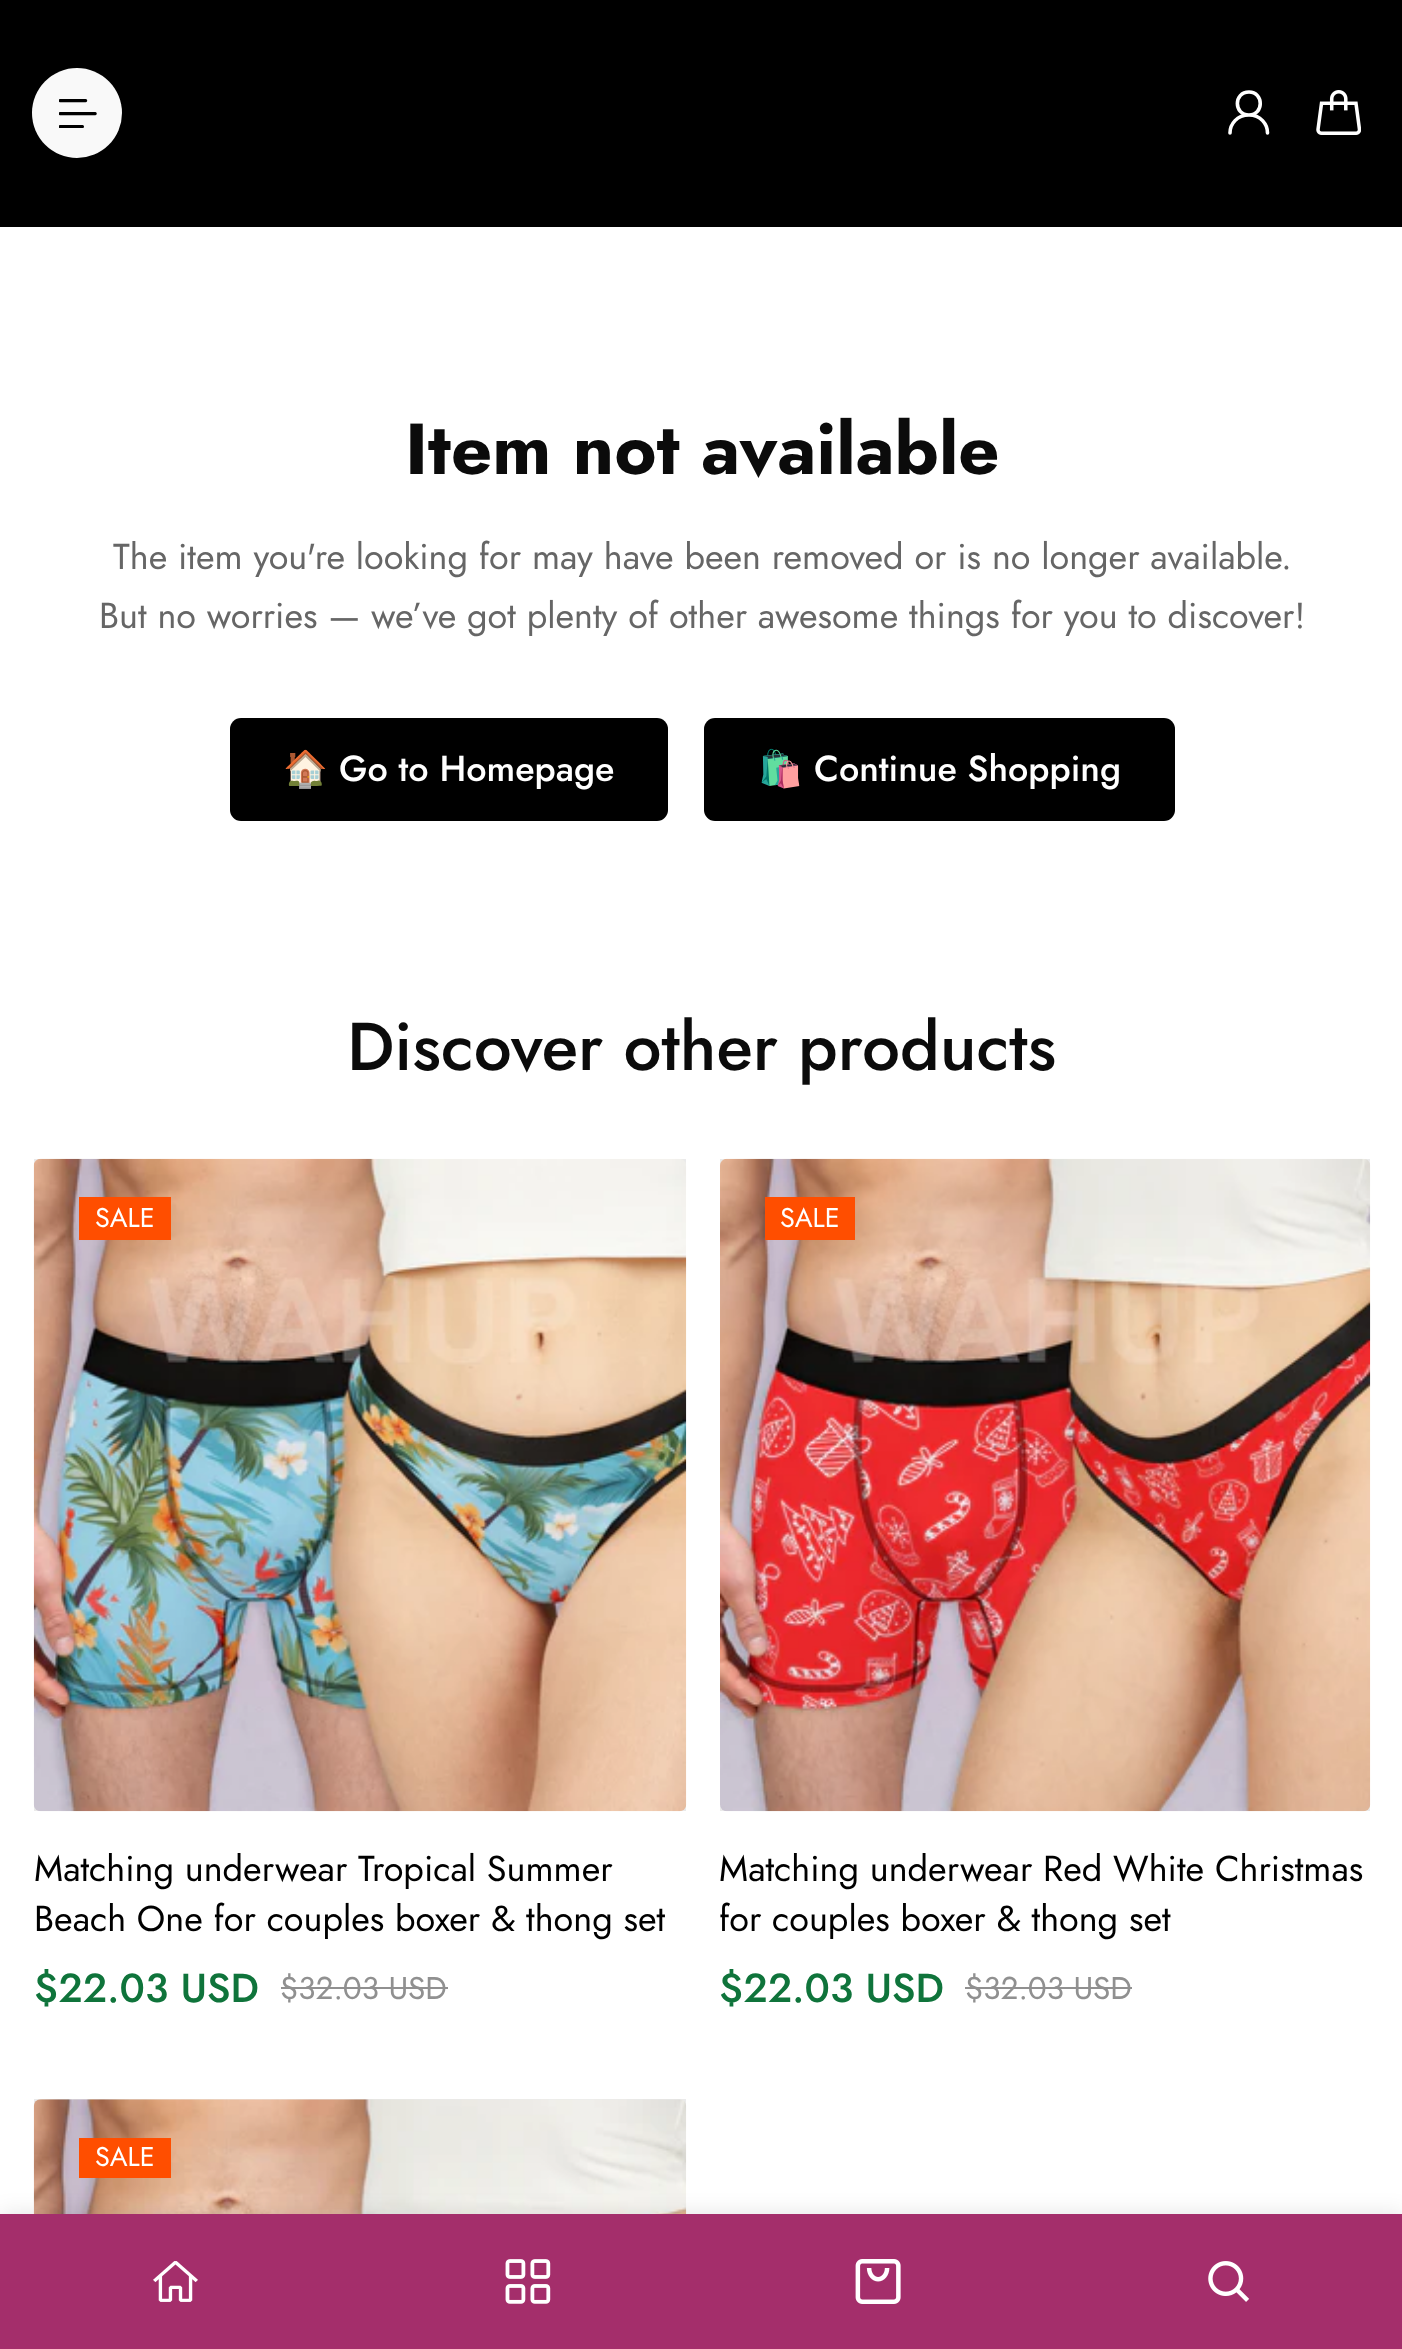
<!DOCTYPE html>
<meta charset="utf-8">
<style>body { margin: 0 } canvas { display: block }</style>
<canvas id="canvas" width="1402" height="2349"></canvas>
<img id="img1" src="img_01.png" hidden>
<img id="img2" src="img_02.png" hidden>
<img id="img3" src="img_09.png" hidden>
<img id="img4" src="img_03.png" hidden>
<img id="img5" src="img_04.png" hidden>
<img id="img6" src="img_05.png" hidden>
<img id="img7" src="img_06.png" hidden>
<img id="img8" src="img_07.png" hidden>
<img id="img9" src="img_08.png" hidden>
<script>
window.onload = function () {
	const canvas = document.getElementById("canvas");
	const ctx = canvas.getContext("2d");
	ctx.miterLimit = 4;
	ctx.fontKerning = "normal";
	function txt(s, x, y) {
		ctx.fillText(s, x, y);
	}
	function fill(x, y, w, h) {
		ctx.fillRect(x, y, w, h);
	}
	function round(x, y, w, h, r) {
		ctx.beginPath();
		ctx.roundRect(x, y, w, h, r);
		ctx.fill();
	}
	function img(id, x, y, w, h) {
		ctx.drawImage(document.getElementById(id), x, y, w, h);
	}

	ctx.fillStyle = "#FFFFFF";
	fill(0, 0, 1402, 2349);
	ctx.fillStyle = "#000000";
	fill(0, 0, 1402, 227);
	ctx.fillStyle = "#F9F9F9";
	ctx.beginPath();
	ctx.arc(77, 113, 45, 0, Math.PI * 2);
	ctx.fill();
	img("img1", 59, 99, 38, 29);
	ctx.beginPath();
	ctx.moveTo(1249, 115);
	ctx.bezierCurveTo(1264, 115, 1264, 92, 1249, 92);
	ctx.bezierCurveTo(1233.5, 92, 1233.5, 115, 1249, 115);
	ctx.closePath();
	ctx.moveTo(1230, 133);
	ctx.bezierCurveTo(1230, 124, 1237, 115, 1249, 115);
	ctx.bezierCurveTo(1260.5, 115, 1267.5, 124, 1267.5, 133);
	ctx.strokeStyle = "#FFFFFF";
	ctx.lineWidth = 3.6;
	ctx.lineCap = "round";
	ctx.lineJoin = "round";
	ctx.stroke();
	img("img2", 1316, 90, 45, 45);
	ctx.fillStyle = "#EAEAEA";
	fill(34, 2099, 652, 6);
	img("img3", 33, 2099, 654, 115);
	ctx.fillStyle = "rgba(0, 0, 0, 0.11)";
	ctx.filter = "blur(11px)";
	ctx.beginPath();
	ctx.rect(0, 2214, 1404, 135);
	ctx.fill();
	ctx.filter = "none";
	ctx.fillStyle = "#A42E6B";
	fill(0, 2214, 1402, 135);
	img("img4", 153, 2261, 45, 41);
	img("img5", 505, 2259, 46, 45);
	img("img6", 855, 2259, 46, 45);
	img("img7", 1208, 2261, 42, 41);
	ctx.fillStyle = "#000000";
	round(230, 718, 438, 103, 11);
	round(704, 718, 471, 103, 11);
	ctx.fillStyle = "#EAEAEA";
	fill(34, 1159, 652, 652);
	img("img8", 33, 1158, 654, 654);
	ctx.fillStyle = "#FF4E00";
	fill(79, 1197, 92, 43);
	ctx.fillStyle = "#909090";
	fill(281, 1987, 167, 2);
	ctx.fillStyle = "#EAEAEA";
	fill(720, 1159, 650, 652);
	img("img9", 720, 1158, 651, 654);
	ctx.fillStyle = "#FF4E00";
	fill(765, 1197, 90, 43);
	ctx.fillStyle = "#909090";
	fill(965, 1987, 167, 2);
	ctx.fillStyle = "#FF4E00";
	fill(79, 2138, 92, 40);
	ctx.font = "bold 72px Jost";
	ctx.fillStyle = "#0B0B0B";
	txt("Item not available", 405, 474);
	ctx.font = "36px Jost";
	ctx.fillStyle = "#666666";
	txt("The item you're looking for may have been removed or is no longer available.", 113, 569);
	txt("But no worries — we’ve got plenty of other awesome things for you to discover!", 99, 628);
	ctx.font = "36px Noto Color Emoji";
	ctx.fillStyle = "#FFFFFF";
	txt("🏠", 283, 781);
	ctx.font = "500 36px Jost";
	txt("Go to Homepage", 339, 781);
	ctx.font = "36px Noto Color Emoji";
	txt("🛍️", 758, 781);
	ctx.font = "500 36px Jost";
	txt("Continue Shopping", 814, 781);
	ctx.font = "500 67.5px Jost";
	ctx.fillStyle = "#0B0B0B";
	txt("Discover other products", 347, 1070);
	ctx.font = "27px Jost";
	ctx.fillStyle = "#FFFFFF";
	txt("SALE", 95, 1227);
	ctx.font = "36px Jost";
	ctx.fillStyle = "#000000";
	txt("Matching underwear Tropical Summer", 34, 1881);
	txt("Beach One for couples boxer & thong set", 34, 1931);
	ctx.font = "500 40.5px Jost";
	ctx.fillStyle = "#0F743B";
	txt("$22.03 USD", 34, 2002);
	ctx.font = "31.5px Jost";
	ctx.fillStyle = "#909090";
	txt("$32.03 USD", 280, 1999);
	ctx.font = "27px Jost";
	ctx.fillStyle = "#FFFFFF";
	txt("SALE", 780, 1227);
	ctx.font = "36px Jost";
	ctx.fillStyle = "#000000";
	txt("Matching underwear Red White Christmas", 719, 1881);
	txt("for couples boxer & thong set", 719, 1931);
	ctx.font = "500 40.5px Jost";
	ctx.fillStyle = "#0F743B";
	txt("$22.03 USD", 719, 2002);
	ctx.font = "31.5px Jost";
	ctx.fillStyle = "#909090";
	txt("$32.03 USD", 965, 1999);
	ctx.font = "27px Jost";
	ctx.fillStyle = "#FFFFFF";
	txt("SALE", 95, 2166);
};
</script>
